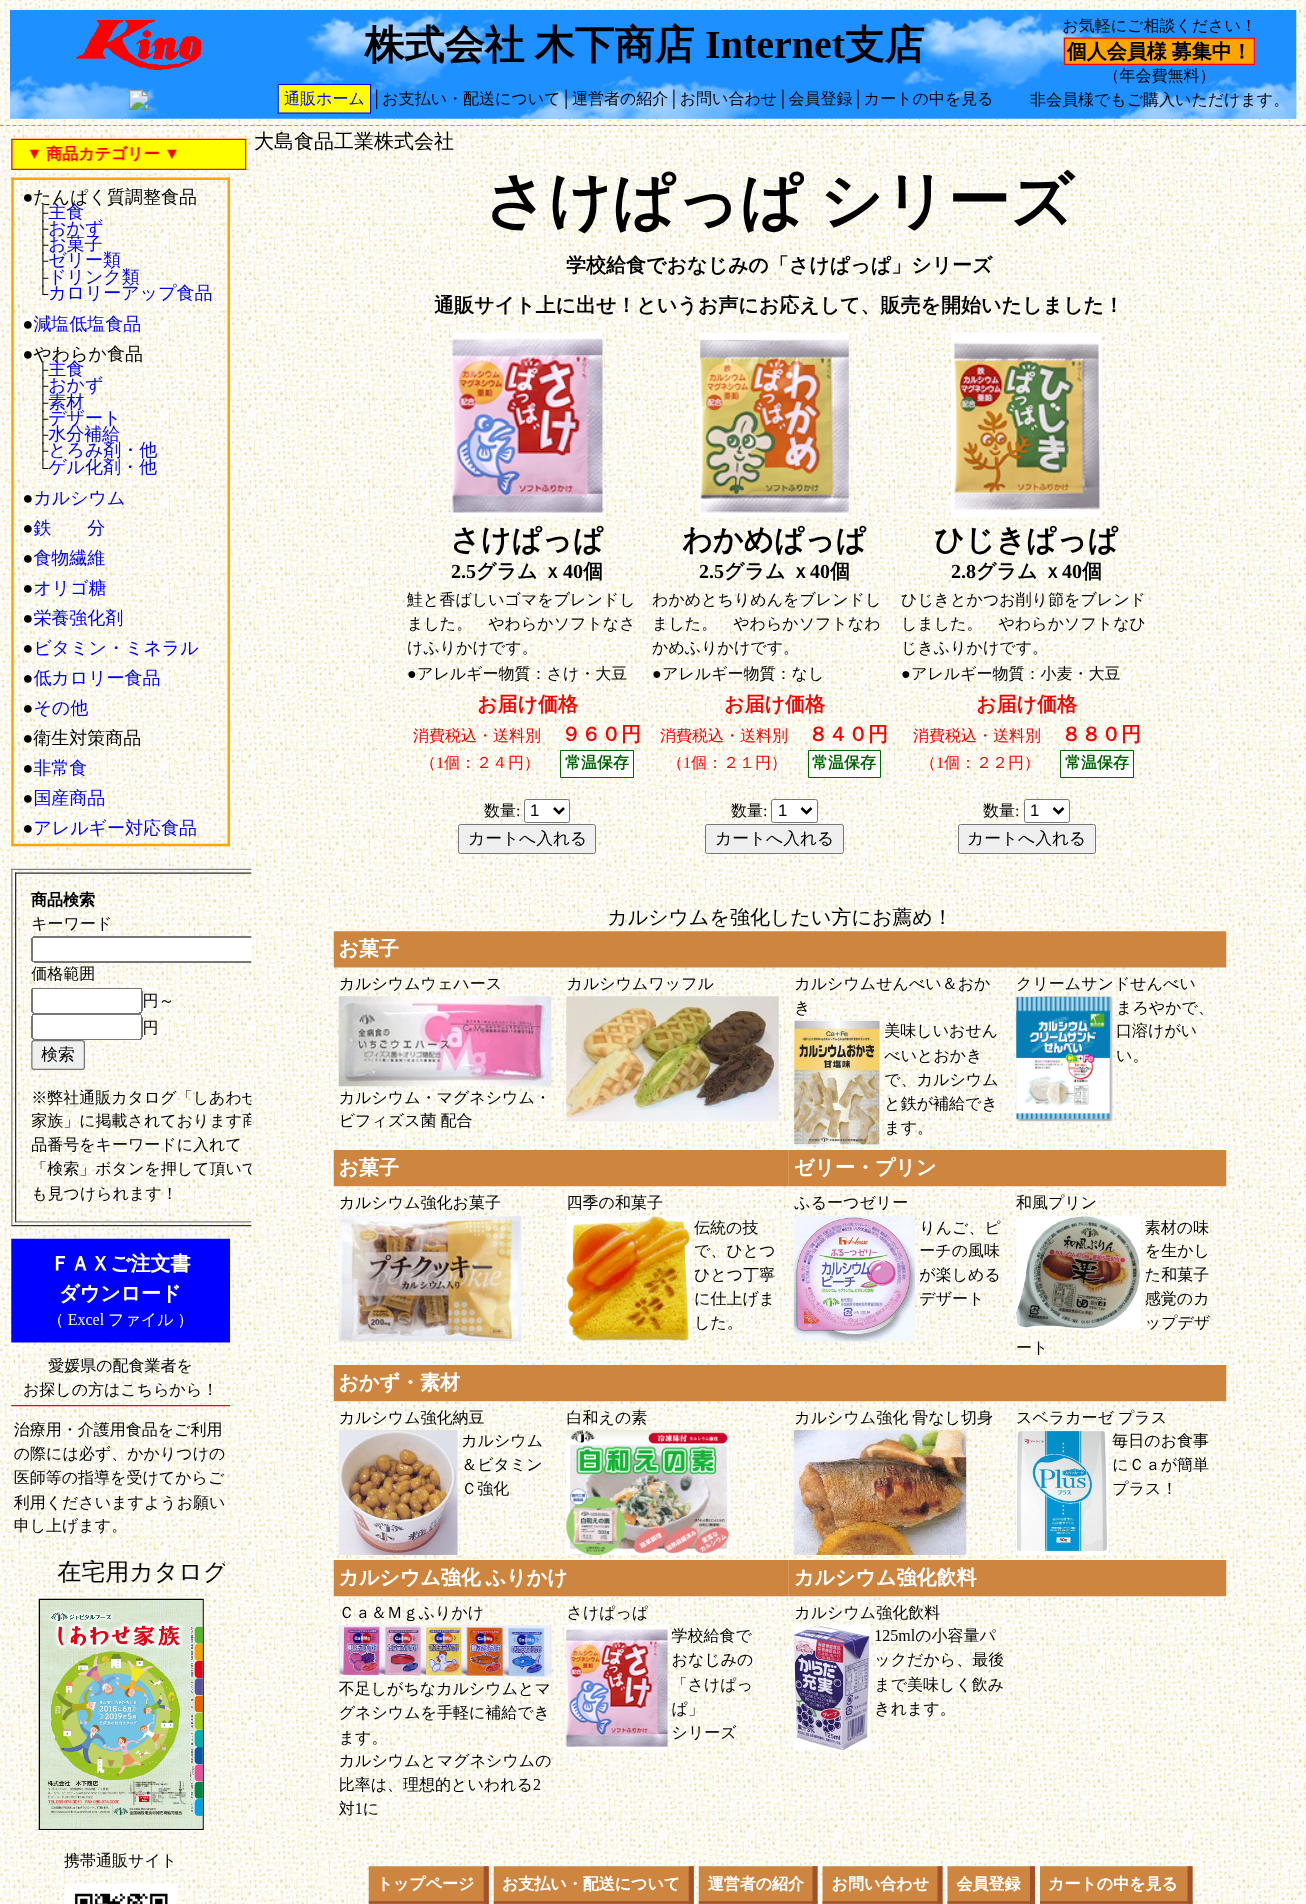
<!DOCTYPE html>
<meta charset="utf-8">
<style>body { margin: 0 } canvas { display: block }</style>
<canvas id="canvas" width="1306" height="1904"></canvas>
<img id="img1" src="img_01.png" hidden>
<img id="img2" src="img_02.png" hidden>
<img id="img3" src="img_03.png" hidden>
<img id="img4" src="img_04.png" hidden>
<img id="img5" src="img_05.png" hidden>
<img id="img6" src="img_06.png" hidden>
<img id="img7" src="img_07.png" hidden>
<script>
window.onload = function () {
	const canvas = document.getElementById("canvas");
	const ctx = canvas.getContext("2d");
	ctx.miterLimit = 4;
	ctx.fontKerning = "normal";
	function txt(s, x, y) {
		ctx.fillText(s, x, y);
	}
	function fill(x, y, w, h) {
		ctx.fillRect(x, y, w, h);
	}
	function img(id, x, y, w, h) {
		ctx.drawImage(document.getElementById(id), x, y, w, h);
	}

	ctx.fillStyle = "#FFFFFF";
	fill(0, 0, 1306, 1904);
	img("img1", 0, 0, 1306, 1904);
	ctx.beginPath();
	ctx.moveTo(0, 125.5);
	ctx.lineTo(1306, 125.5);
	ctx.strokeStyle = "#FF8C00";
	ctx.lineWidth = 1.2;
	ctx.setLineDash([3.75, 2.51]);
	ctx.stroke();
	img("img2", 10, 10, 1287, 109);
	img("img3", 11, 138, 241, 1766);
	img("img4", 452, 332, 151, 186);
	ctx.beginPath();
	ctx.rect(560.5, 750.5, 73, 27);
	ctx.fill();
	ctx.strokeStyle = "#006400";
	ctx.lineWidth = 1;
	ctx.setLineDash([]);
	ctx.stroke();
	ctx.beginPath();
	ctx.roundRect(524.5, 799.5, 45, 23, 2);
	ctx.fill();
	ctx.strokeStyle = "#767676";
	ctx.stroke();
	ctx.beginPath();
	ctx.moveTo(554, 808);
	ctx.lineTo(559, 813);
	ctx.lineTo(564, 808);
	ctx.strokeStyle = "#000000";
	ctx.lineWidth = 2.5;
	ctx.stroke();
	ctx.fillStyle = "#EFEFEF";
	ctx.beginPath();
	ctx.roundRect(458.5, 824.5, 137, 29, 2);
	ctx.fill();
	ctx.strokeStyle = "#767676";
	ctx.lineWidth = 1;
	ctx.stroke();
	img("img5", 698, 332, 151, 186);
	ctx.fillStyle = "#FFFFFF";
	ctx.beginPath();
	ctx.rect(808.5, 750.5, 72, 27);
	ctx.fill();
	ctx.strokeStyle = "#006400";
	ctx.stroke();
	ctx.beginPath();
	ctx.roundRect(771.5, 799.5, 46, 23, 2);
	ctx.fill();
	ctx.strokeStyle = "#767676";
	ctx.stroke();
	ctx.beginPath();
	ctx.moveTo(801.5, 808);
	ctx.lineTo(806.5, 813);
	ctx.lineTo(811.5, 808);
	ctx.strokeStyle = "#000000";
	ctx.lineWidth = 2.5;
	ctx.stroke();
	ctx.fillStyle = "#EFEFEF";
	ctx.beginPath();
	ctx.roundRect(705.5, 824.5, 138, 29, 2);
	ctx.fill();
	ctx.strokeStyle = "#767676";
	ctx.lineWidth = 1;
	ctx.stroke();
	img("img6", 951, 332, 151, 186);
	ctx.fillStyle = "#FFFFFF";
	ctx.beginPath();
	ctx.rect(1060.5, 750.5, 73, 27);
	ctx.fill();
	ctx.strokeStyle = "#006400";
	ctx.stroke();
	ctx.beginPath();
	ctx.roundRect(1024.5, 799.5, 45, 23, 2);
	ctx.fill();
	ctx.strokeStyle = "#767676";
	ctx.stroke();
	ctx.beginPath();
	ctx.moveTo(1053.5, 808);
	ctx.lineTo(1058.5, 813);
	ctx.lineTo(1063.5, 808);
	ctx.strokeStyle = "#000000";
	ctx.lineWidth = 2.5;
	ctx.stroke();
	ctx.fillStyle = "#EFEFEF";
	ctx.beginPath();
	ctx.roundRect(958.5, 824.5, 137, 29, 2);
	ctx.fill();
	ctx.strokeStyle = "#767676";
	ctx.lineWidth = 1;
	ctx.stroke();
	img("img7", 324, 895, 913, 1009);
	ctx.font = "500 20px WenQuanYi Zen Hei";
	ctx.fillStyle = "#000000";
	txt("大島食品工業株式会社", 254, 148);
	ctx.wordSpacing = "-3px";
	ctx.font = "bold 62.5px WenQuanYi Zen Hei";
	txt("さけぱっぱ シリーズ", 484, 222);
	ctx.wordSpacing = "0px";
	ctx.font = "bold 20px WenQuanYi Zen Hei";
	txt("学校給食でおなじみの「さけぱっぱ」シリーズ", 566, 272);
	txt("通販サイト上に出せ！というお声にお応えして、販売を開始いたしました！", 434, 312);
	ctx.font = "bold 30px WenQuanYi Zen Hei";
	txt("さけぱっぱ", 450, 550);
	ctx.font = "bold 20px Liberation Serif";
	txt("2.5", 451, 578);
	ctx.wordSpacing = "-1px";
	ctx.font = "bold 20px WenQuanYi Zen Hei";
	txt("グラム ｘ", 476, 578);
	ctx.wordSpacing = "0px";
	ctx.font = "bold 20px Liberation Serif";
	txt("40", 563, 578);
	ctx.font = "bold 20px WenQuanYi Zen Hei";
	txt("個", 583, 578);
	ctx.font = "500 16px WenQuanYi Zen Hei";
	txt("鮭と香ばしいゴマをブレンドし", 407, 605);
	txt("ました。　やわらかソフトなさ", 407, 629);
	txt("けふりかけです。", 407, 653);
	ctx.font = "16px Liberation Serif";
	txt("●", 407, 679);
	ctx.font = "500 16px WenQuanYi Zen Hei";
	txt("アレルギー物質：さけ・大豆", 417, 679);
	ctx.font = "bold 20px WenQuanYi Zen Hei";
	ctx.fillStyle = "#FF0000";
	txt("お届け価格", 477, 711);
	ctx.font = "500 16px WenQuanYi Zen Hei";
	txt("消費税込・送料別", 413, 741);
	ctx.font = "bold 20px WenQuanYi Zen Hei";
	txt("９６０円", 561, 741);
	ctx.font = "500 16px WenQuanYi Zen Hei";
	txt("（", 420, 768);
	ctx.font = "16px Liberation Serif";
	txt("1", 436, 768);
	ctx.font = "500 16px WenQuanYi Zen Hei";
	txt("個：２４円）", 444, 768);
	ctx.font = "bold 16px WenQuanYi Zen Hei";
	ctx.fillStyle = "#006400";
	txt("常温保存", 565, 768);
	ctx.font = "500 16px WenQuanYi Zen Hei";
	ctx.fillStyle = "#000000";
	txt("数量", 484, 816);
	ctx.font = "16px Liberation Serif";
	txt(":", 516, 816);
	ctx.font = "16.75px Liberation Sans";
	txt("1", 530, 816);
	ctx.font = "500 16.75px WenQuanYi Zen Hei";
	txt("カートへ入れる", 468, 844);
	ctx.font = "bold 30px WenQuanYi Zen Hei";
	txt("わかめぱっぱ", 682, 550);
	ctx.font = "bold 20px Liberation Serif";
	txt("2.5", 699, 578);
	ctx.wordSpacing = "-1px";
	ctx.font = "bold 20px WenQuanYi Zen Hei";
	txt("グラム ｘ", 724, 578);
	ctx.wordSpacing = "0px";
	ctx.font = "bold 20px Liberation Serif";
	txt("40", 810, 578);
	ctx.font = "bold 20px WenQuanYi Zen Hei";
	txt("個", 830, 578);
	ctx.font = "500 16px WenQuanYi Zen Hei";
	txt("わかめとちりめんをブレンドし", 652, 605);
	txt("ました。　やわらかソフトなわ", 652, 629);
	txt("かめふりかけです。", 652, 653);
	ctx.font = "16px Liberation Serif";
	txt("●", 652, 679);
	ctx.font = "500 16px WenQuanYi Zen Hei";
	txt("アレルギー物質：なし", 662, 679);
	ctx.font = "bold 20px WenQuanYi Zen Hei";
	ctx.fillStyle = "#FF0000";
	txt("お届け価格", 724, 711);
	ctx.font = "500 16px WenQuanYi Zen Hei";
	txt("消費税込・送料別", 660, 741);
	ctx.font = "bold 20px WenQuanYi Zen Hei";
	txt("８４０円", 808, 741);
	ctx.font = "500 16px WenQuanYi Zen Hei";
	txt("（", 667, 768);
	ctx.font = "16px Liberation Serif";
	txt("1", 683, 768);
	ctx.font = "500 16px WenQuanYi Zen Hei";
	txt("個：２１円）", 691, 768);
	ctx.font = "bold 16px WenQuanYi Zen Hei";
	ctx.fillStyle = "#006400";
	txt("常温保存", 812, 768);
	ctx.font = "500 16px WenQuanYi Zen Hei";
	ctx.fillStyle = "#000000";
	txt("数量", 731, 816);
	ctx.font = "16px Liberation Serif";
	txt(":", 763, 816);
	ctx.font = "16.75px Liberation Sans";
	txt("1", 778, 816);
	ctx.font = "500 16.75px WenQuanYi Zen Hei";
	txt("カートへ入れる", 715, 844);
	ctx.font = "bold 30px WenQuanYi Zen Hei";
	txt("ひじきぱっぱ", 934, 550);
	ctx.font = "bold 20px Liberation Serif";
	txt("2.8", 951, 578);
	ctx.wordSpacing = "-1px";
	ctx.font = "bold 20px WenQuanYi Zen Hei";
	txt("グラム ｘ", 976, 578);
	ctx.wordSpacing = "0px";
	ctx.font = "bold 20px Liberation Serif";
	txt("40", 1062, 578);
	ctx.font = "bold 20px WenQuanYi Zen Hei";
	txt("個", 1082, 578);
	ctx.font = "500 16px WenQuanYi Zen Hei";
	txt("ひじきとかつお削り節をブレンド", 901, 605);
	txt("しました。　やわらかソフトなひ", 901, 629);
	txt("じきふりかけです。", 901, 653);
	ctx.font = "16px Liberation Serif";
	txt("●", 901, 679);
	ctx.font = "500 16px WenQuanYi Zen Hei";
	txt("アレルギー物質：小麦・大豆", 911, 679);
	ctx.font = "bold 20px WenQuanYi Zen Hei";
	ctx.fillStyle = "#FF0000";
	txt("お届け価格", 976, 711);
	ctx.font = "500 16px WenQuanYi Zen Hei";
	txt("消費税込・送料別", 913, 741);
	ctx.font = "bold 20px WenQuanYi Zen Hei";
	txt("８８０円", 1061, 741);
	ctx.font = "500 16px WenQuanYi Zen Hei";
	txt("（", 920, 768);
	ctx.font = "16px Liberation Serif";
	txt("1", 936, 768);
	ctx.font = "500 16px WenQuanYi Zen Hei";
	txt("個：２２円）", 944, 768);
	ctx.font = "bold 16px WenQuanYi Zen Hei";
	ctx.fillStyle = "#006400";
	txt("常温保存", 1065, 768);
	ctx.font = "500 16px WenQuanYi Zen Hei";
	ctx.fillStyle = "#000000";
	txt("数量", 983, 816);
	ctx.font = "16px Liberation Serif";
	txt(":", 1015, 816);
	ctx.font = "16.75px Liberation Sans";
	txt("1", 1030, 816);
	ctx.font = "500 16.75px WenQuanYi Zen Hei";
	txt("カートへ入れる", 967, 844);
};
</script>
